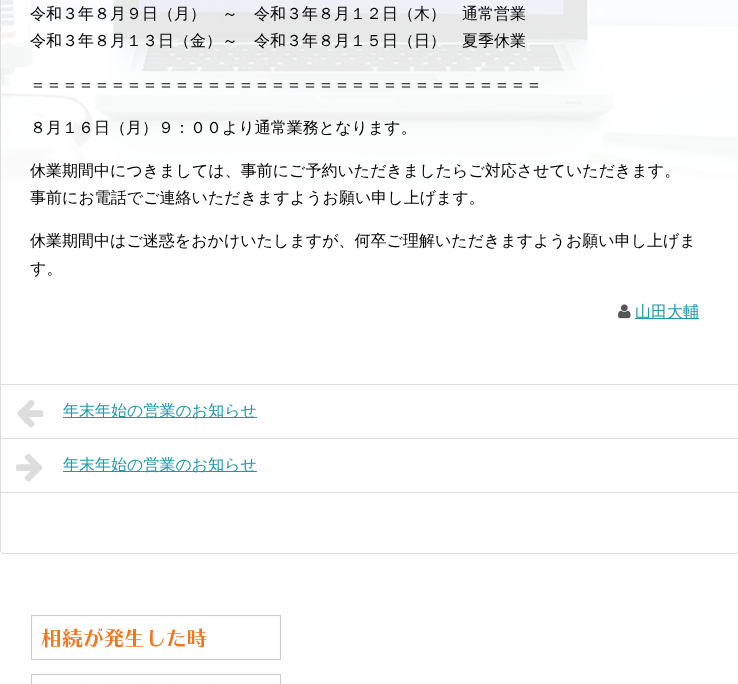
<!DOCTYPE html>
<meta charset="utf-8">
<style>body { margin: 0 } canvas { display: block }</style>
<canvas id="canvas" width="738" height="684"></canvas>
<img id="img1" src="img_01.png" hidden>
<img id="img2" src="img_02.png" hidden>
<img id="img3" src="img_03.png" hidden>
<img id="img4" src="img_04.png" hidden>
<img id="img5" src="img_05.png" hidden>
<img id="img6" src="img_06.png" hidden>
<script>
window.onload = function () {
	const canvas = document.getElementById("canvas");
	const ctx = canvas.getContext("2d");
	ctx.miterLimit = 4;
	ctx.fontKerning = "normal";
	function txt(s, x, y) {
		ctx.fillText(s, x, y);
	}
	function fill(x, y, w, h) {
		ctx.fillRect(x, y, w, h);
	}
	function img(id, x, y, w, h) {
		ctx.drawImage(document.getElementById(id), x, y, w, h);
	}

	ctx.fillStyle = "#FFFFFF";
	fill(0, 0, 738, 684);
	img("img1", 1, 0, 737, 197);
	ctx.fillStyle = "rgba(255, 255, 255, 0.9)";
	ctx.beginPath();
	ctx.roundRect(0.5, -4.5, 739, 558, 3.5);
	ctx.fill();
	ctx.strokeStyle = "#DDDDDD";
	ctx.stroke();
	img("img2", 618, 304, 13, 15);
	ctx.fillStyle = "#2098A8";
	fill(635, 318, 64, 1);
	ctx.fillStyle = "#DDDDDD";
	fill(0, 384, 738, 1);
	fill(0, 438, 738, 1);
	img("img3", 17, 400, 27, 28);
	ctx.fillStyle = "#2098A8";
	fill(63, 417, 194, 1);
	ctx.fillStyle = "#DDDDDD";
	fill(0, 492, 738, 1);
	img("img4", 16, 453, 27, 29);
	ctx.fillStyle = "#2098A8";
	fill(63, 471, 194, 1);
	img("img5", 31, 615, 250, 45);
	img("img6", 31, 674, 250, 10);
	ctx.font = "500 16px WenQuanYi Zen Hei";
	ctx.fillStyle = "#000000";
	txt("令和３年８月９日（月）　～　令和３年８月１２日（木）　通常営業", 30, 19);
	txt("令和３年８月１３日（金）～　令和３年８月１５日（日）　夏季休業", 30, 46);
	txt("＝＝＝＝＝＝＝＝＝＝＝＝＝＝＝＝＝＝＝＝＝＝＝＝＝＝＝＝＝＝＝＝", 30, 90);
	txt("８月１６日（月）９：００より通常業務となります。", 30, 133);
	txt("休業期間中につきましては、事前にご予約いただきましたらご対応させていただきます。", 30, 176);
	txt("事前にお電話でご連絡いただきますようお願い申し上げます。", 30, 203);
	txt("休業期間中はご迷惑をおかけいたしますが、何卒ご理解いただきますようお願い申し上げま", 30, 246);
	txt("す。", 30, 274);
	ctx.fillStyle = "#2098A8";
	txt("山田大輔", 635, 317);
	txt("年末年始の営業のお知らせ", 63, 416);
	txt("年末年始の営業のお知らせ", 63, 470);
};
</script>
